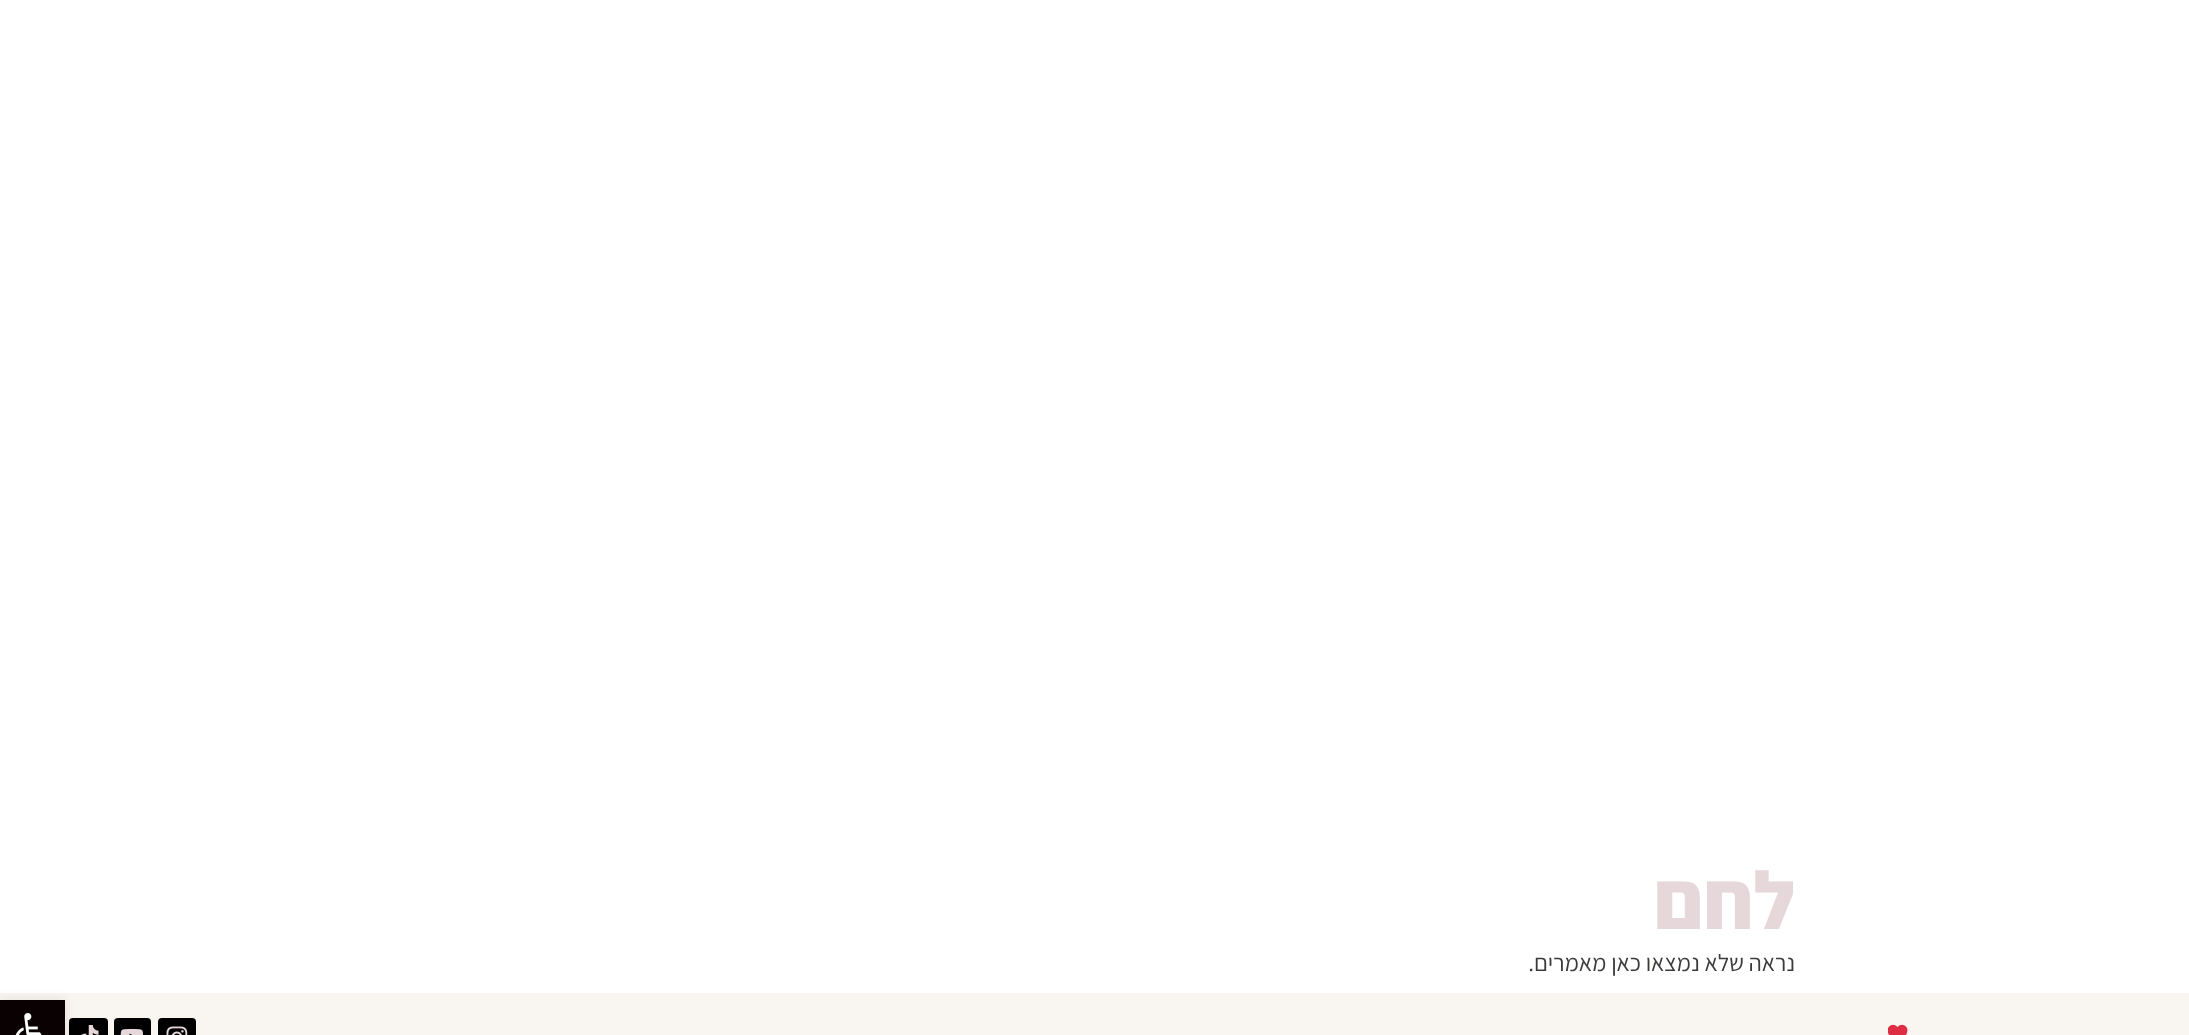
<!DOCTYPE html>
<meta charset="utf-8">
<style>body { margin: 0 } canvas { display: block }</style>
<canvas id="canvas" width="2189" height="1035"></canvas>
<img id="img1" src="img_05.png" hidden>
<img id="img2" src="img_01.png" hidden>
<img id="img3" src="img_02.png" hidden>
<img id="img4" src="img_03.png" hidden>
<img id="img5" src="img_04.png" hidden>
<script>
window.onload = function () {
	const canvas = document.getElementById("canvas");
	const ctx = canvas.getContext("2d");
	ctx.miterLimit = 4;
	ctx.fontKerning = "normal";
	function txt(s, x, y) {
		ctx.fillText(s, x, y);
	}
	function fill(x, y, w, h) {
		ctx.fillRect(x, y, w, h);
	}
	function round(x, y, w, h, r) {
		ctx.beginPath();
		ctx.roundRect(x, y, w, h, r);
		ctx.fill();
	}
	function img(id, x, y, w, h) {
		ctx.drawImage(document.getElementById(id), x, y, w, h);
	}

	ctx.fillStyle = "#FFFFFF";
	fill(0, 0, 2189, 1035);
	ctx.fillStyle = "#F9F5F1";
	fill(0, 993, 2189, 42);
	ctx.fillStyle = "#000000";
	round(69, 1018, 39, 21, 4);
	img("img1", 81, 1025, 18, 10);
	ctx.fillStyle = "rgba(0, 0, 0, 0.1)";
	ctx.filter = "blur(6px)";
	ctx.beginPath();
	ctx.rect(0, 1000, 65, 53);
	ctx.fill();
	ctx.filter = "none";
	ctx.fillStyle = "#0A0202";
	fill(0, 1000, 65, 35);
	img("img2", 15, 1013, 27, 22);
	img("img3", 1888, 1024, 20, 11);
	ctx.fillStyle = "#000000";
	round(158, 1018, 38, 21, 4);
	img("img4", 166, 1026, 22, 9);
	round(114, 1018, 37, 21, 4);
	img("img5", 120, 1028, 24, 7);
	ctx.direction = "rtl";
	ctx.font = "800 82px Assistant";
	ctx.fillStyle = "#E5D7DA";
	txt("לחם", 1795, 929);
	ctx.font = "23.75px Assistant";
	ctx.fillStyle = "#3D3B3A";
	txt("נראה שלא נמצאו כאן מאמרים.", 1795, 971);
};
</script>
